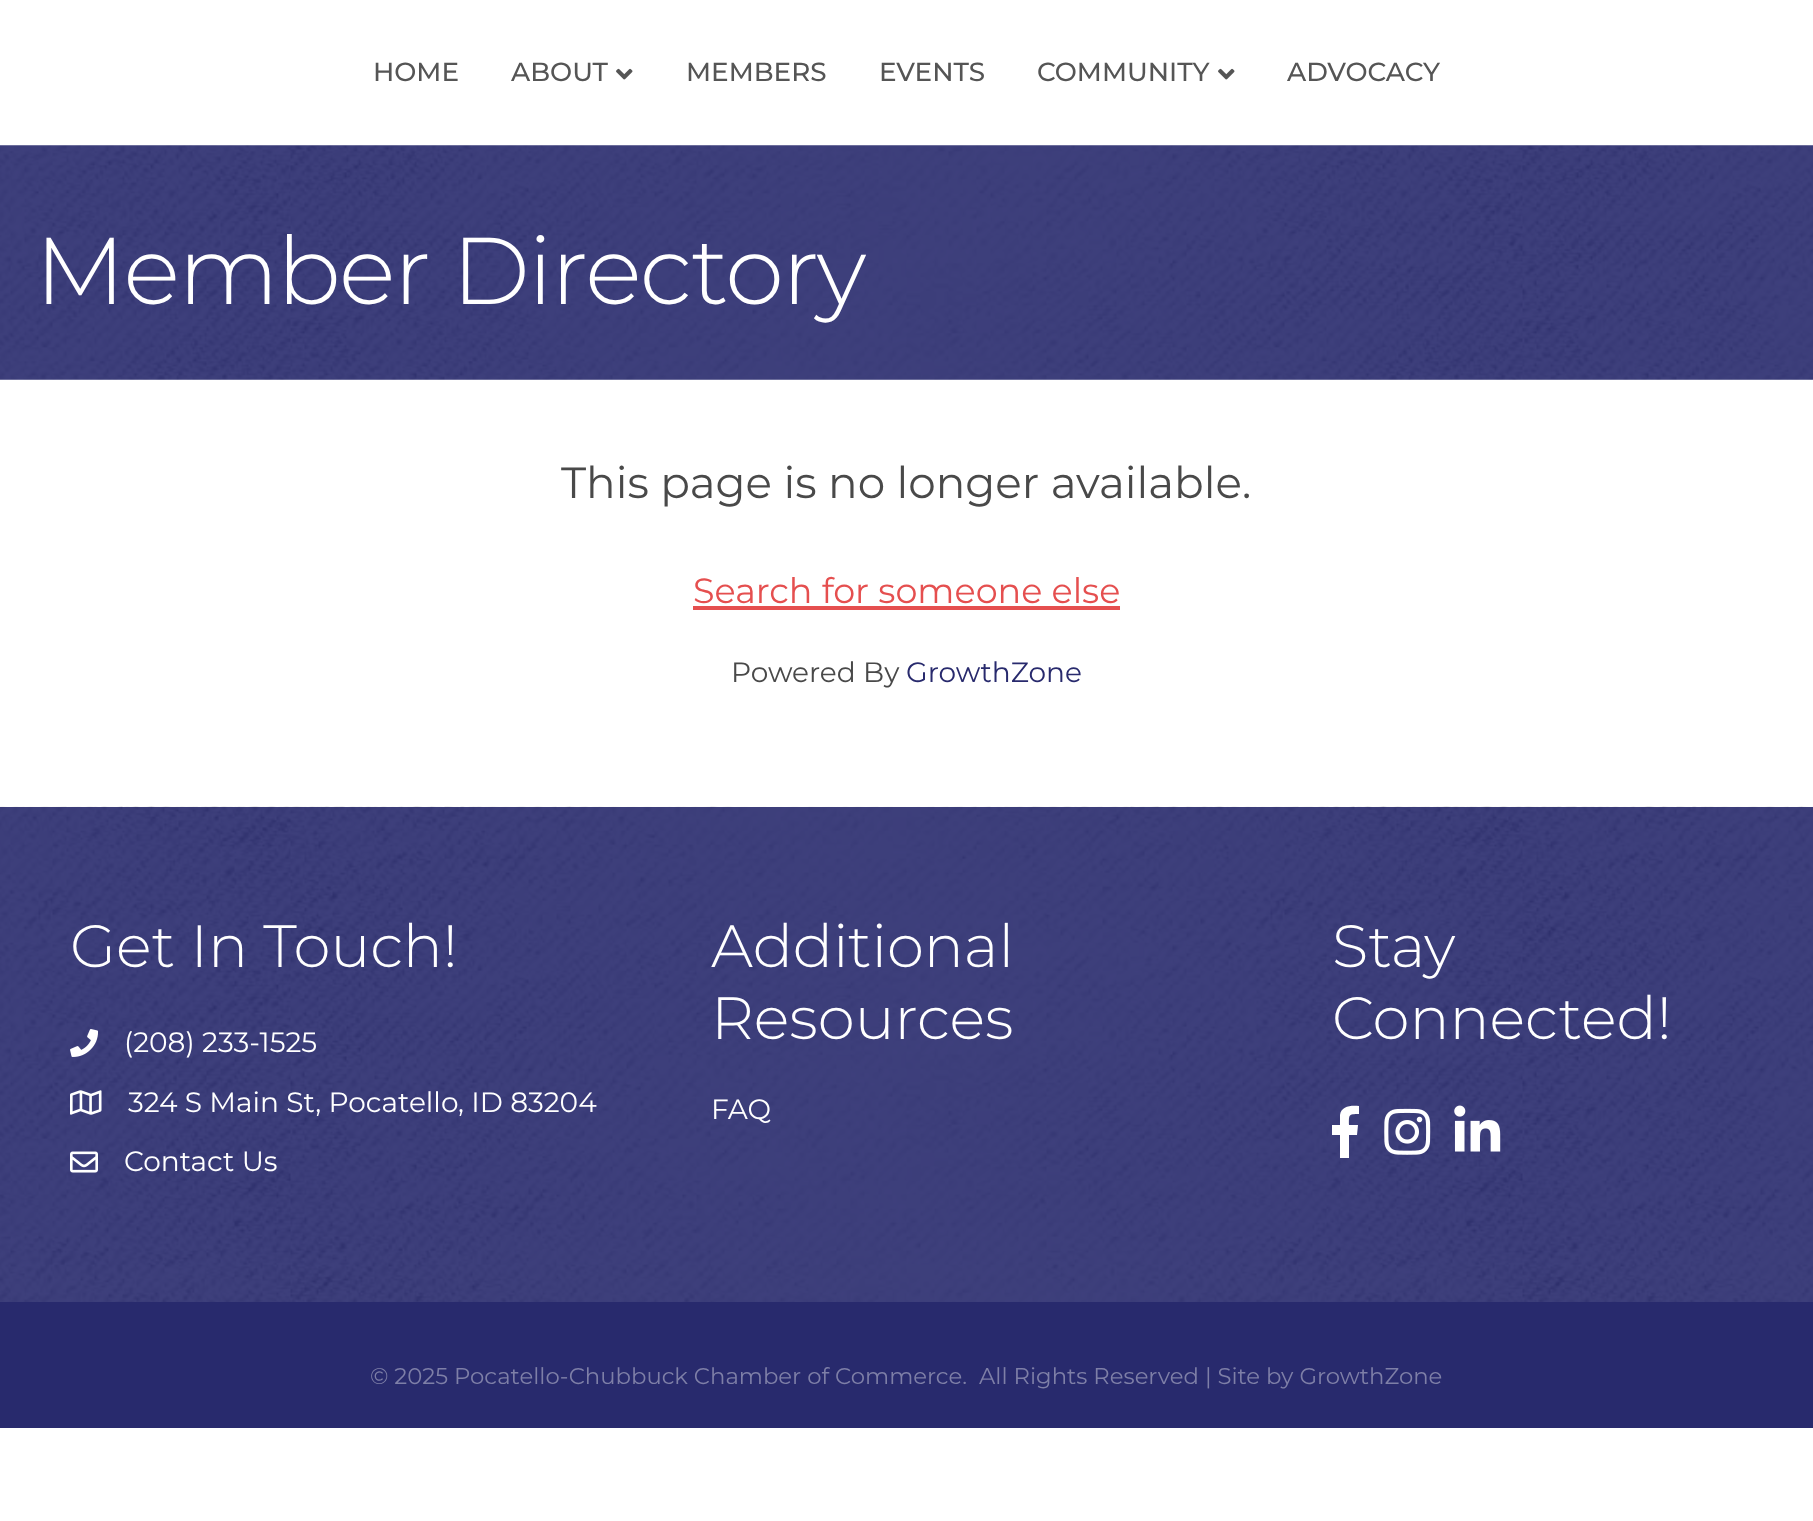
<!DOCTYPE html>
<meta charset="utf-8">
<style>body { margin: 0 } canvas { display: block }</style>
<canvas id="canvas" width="1813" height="1521"></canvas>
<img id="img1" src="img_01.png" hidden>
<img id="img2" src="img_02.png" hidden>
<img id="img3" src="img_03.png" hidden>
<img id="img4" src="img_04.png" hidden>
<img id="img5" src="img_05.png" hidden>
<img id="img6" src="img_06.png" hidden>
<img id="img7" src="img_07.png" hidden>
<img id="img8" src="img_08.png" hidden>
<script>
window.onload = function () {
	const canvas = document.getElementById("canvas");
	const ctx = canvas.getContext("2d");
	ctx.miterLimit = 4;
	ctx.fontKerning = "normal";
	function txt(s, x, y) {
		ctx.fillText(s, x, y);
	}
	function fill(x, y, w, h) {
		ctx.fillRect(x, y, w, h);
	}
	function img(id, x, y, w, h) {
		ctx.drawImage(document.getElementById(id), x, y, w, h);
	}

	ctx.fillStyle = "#FFFFFF";
	fill(0, 0, 1813, 1521);
	img("img1", 616, 68, 17, 12);
	img("img1", 1218, 68, 17, 12);
	img("img2", 0, 145, 1813, 235);
	ctx.fillStyle = "#E54F4F";
	fill(693, 606, 427, 4);
	img("img3", 0, 806, 1813, 496);
	img("img4", 70, 1029, 29, 28);
	img("img5", 70, 1090, 32, 25);
	img("img6", 70, 1151, 28, 22);
	ctx.fillStyle = "#FFFFFF";
	ctx.beginPath();
	ctx.moveTo(1340, 1158);
	ctx.lineTo(1340, 1135);
	ctx.lineTo(1332, 1135);
	ctx.lineTo(1332, 1125);
	ctx.lineTo(1340, 1125);
	ctx.lineTo(1340, 1115);
	ctx.bezierCurveTo(1341, 1106, 1351, 1105, 1359, 1106);
	ctx.lineTo(1359, 1114);
	ctx.bezierCurveTo(1348, 1114, 1349, 1115, 1349, 1125);
	ctx.lineTo(1358, 1125);
	ctx.lineTo(1357, 1135);
	ctx.lineTo(1349, 1135);
	ctx.lineTo(1349, 1158);
	ctx.closePath();
	ctx.fill();
	img("img7", 1384, 1108, 47, 47);
	img("img8", 1454, 1105, 47, 47);
	ctx.fillStyle = "#282A6D";
	fill(0, 1302, 1813, 126);
	ctx.font = "500 26.25px Montserrat";
	ctx.fillStyle = "#555555";
	txt("HOME", 373, 81);
	txt("ABOUT", 511, 81);
	txt("MEMBERS", 686, 81);
	txt("EVENTS", 879, 81);
	txt("COMMUNITY", 1037, 81);
	txt("ADVOCACY", 1287, 81);
	ctx.letterSpacing = "-1.75px";
	ctx.font = "300 94.5px Montserrat";
	ctx.fillStyle = "#FFFFFF";
	txt("Member Directory", 35, 304);
	ctx.letterSpacing = "0px";
	ctx.font = "43.75px Montserrat";
	ctx.fillStyle = "#494949";
	txt("This page is no longer available.", 561, 498);
	ctx.font = "35px Montserrat";
	ctx.fillStyle = "#E54F4F";
	txt("Search for someone else", 693, 603);
	ctx.font = "28px Montserrat";
	ctx.fillStyle = "#494949";
	txt("Powered By", 731, 682);
	ctx.fillStyle = "#282A6D";
	txt("GrowthZone", 906, 682);
	ctx.font = "300 59.5px Montserrat";
	ctx.fillStyle = "#FFFFFF";
	txt("Get In Touch!", 70, 967);
	ctx.font = "28px Montserrat";
	txt("(208) 233-1525", 124, 1052);
	txt("324 S Main St, Pocatello, ID 83204", 128, 1112);
	txt("Contact Us", 124, 1171);
	ctx.font = "300 59.5px Montserrat";
	txt("Additional", 711, 967);
	txt("Resources", 711, 1039);
	ctx.font = "28px Montserrat";
	txt("FAQ", 711, 1119);
	ctx.font = "300 59.5px Montserrat";
	txt("Stay", 1332, 967);
	txt("Connected!", 1332, 1039);
	ctx.font = "22.75px Montserrat";
	ctx.fillStyle = "#7E7FA7";
	txt("© 2025 Pocatello-Chubbuck Chamber of Commerce.", 370, 1384);
	txt("All Rights Reserved | Site by GrowthZone", 979, 1384);
};
</script>
